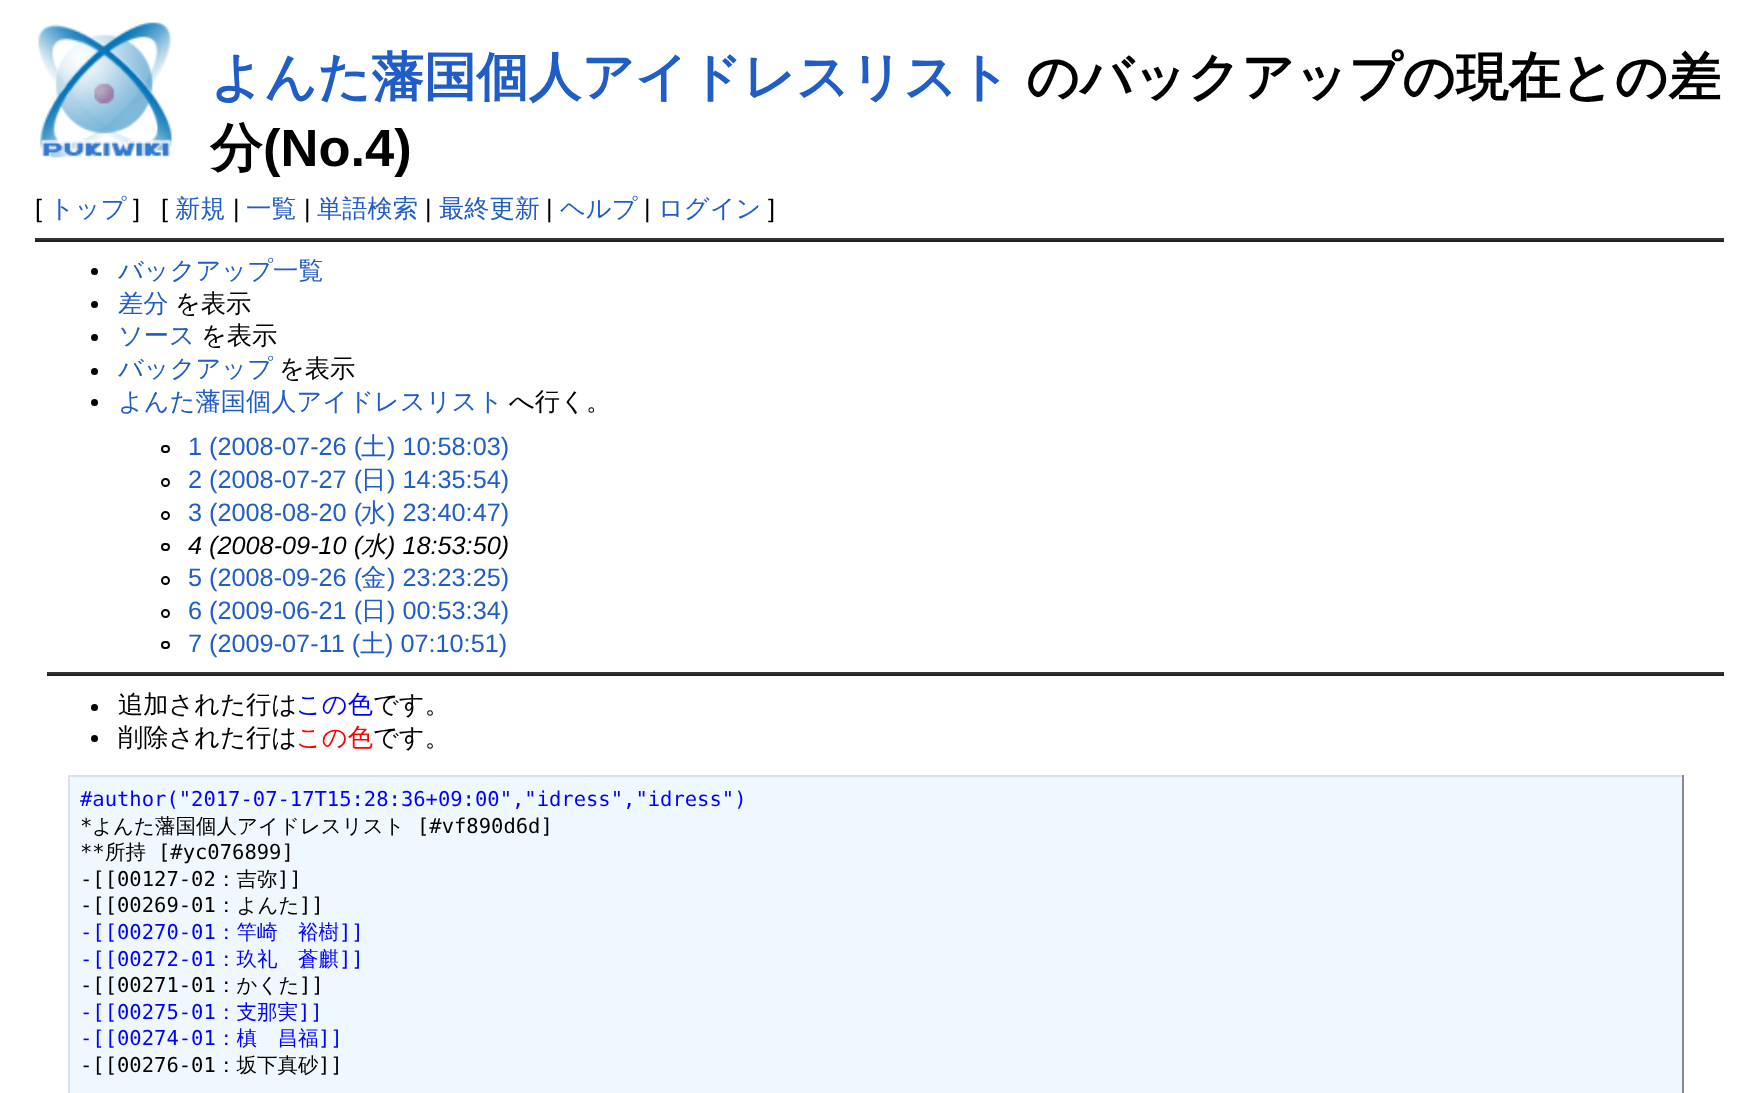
<!DOCTYPE html>
<meta charset="utf-8">
<style>body { margin: 0 } canvas { display: block }</style>
<canvas id="canvas" width="1758" height="1093"></canvas>
<img id="img1" src="img_01.png" hidden>
<script>
window.onload = function () {
	const canvas = document.getElementById("canvas");
	const ctx = canvas.getContext("2d");
	ctx.miterLimit = 4;
	ctx.fontKerning = "normal";
	function txt(s, x, y) {
		ctx.fillText(s, x, y);
	}
	function fill(x, y, w, h) {
		ctx.fillRect(x, y, w, h);
	}
	function img(id, x, y, w, h) {
		ctx.drawImage(document.getElementById(id), x, y, w, h);
	}

	ctx.fillStyle = "#FFFFFF";
	fill(0, 0, 1758, 1093);
	img("img1", 38, 22, 134, 136);
	ctx.fillStyle = "#333333";
	fill(35, 238, 1689, 2);
	ctx.fillStyle = "#222222";
	fill(35, 240, 1689, 2);
	ctx.fillStyle = "#000000";
	ctx.beginPath();
	ctx.arc(94.5, 271.5, 3.5, 0, Math.PI * 2);
	ctx.fill();
	ctx.beginPath();
	ctx.arc(94.5, 304.5, 3.5, 0, Math.PI * 2);
	ctx.fill();
	ctx.beginPath();
	ctx.arc(94.5, 337.5, 3.5, 0, Math.PI * 2);
	ctx.fill();
	ctx.beginPath();
	ctx.arc(94.5, 371.5, 3.5, 0, Math.PI * 2);
	ctx.fill();
	ctx.beginPath();
	ctx.arc(94.5, 402.5, 3.5, 0, Math.PI * 2);
	ctx.fill();
	ctx.beginPath();
	ctx.roundRect(162, 446, 7, 6, 3);
	ctx.strokeStyle = "#000000";
	ctx.lineWidth = 2;
	ctx.stroke();
	ctx.beginPath();
	ctx.arc(165.5, 482.5, 3.5, 0, Math.PI * 2);
	ctx.stroke();
	ctx.beginPath();
	ctx.arc(165.5, 515.5, 3.5, 0, Math.PI * 2);
	ctx.stroke();
	ctx.beginPath();
	ctx.roundRect(162, 544, 7, 6, 3);
	ctx.stroke();
	ctx.beginPath();
	ctx.arc(165.5, 580.5, 3.5, 0, Math.PI * 2);
	ctx.stroke();
	ctx.beginPath();
	ctx.arc(165.5, 613.5, 3.5, 0, Math.PI * 2);
	ctx.stroke();
	ctx.beginPath();
	ctx.roundRect(162, 642, 7, 6, 3);
	ctx.stroke();
	ctx.fillStyle = "#333333";
	fill(47, 672, 1677, 2);
	ctx.fillStyle = "#222222";
	fill(47, 674, 1677, 2);
	ctx.fillStyle = "#000000";
	ctx.beginPath();
	ctx.arc(94.5, 707.5, 3.5, 0, Math.PI * 2);
	ctx.fill();
	ctx.beginPath();
	ctx.arc(94.5, 738.5, 3.5, 0, Math.PI * 2);
	ctx.fill();
	ctx.fillStyle = "#F0F8FF";
	fill(70, 777, 1612, 316);
	ctx.fillStyle = "#DDDDEE";
	fill(68, 775, 1616, 2);
	ctx.fillStyle = "#888899";
	fill(1682, 775, 2, 318);
	ctx.fillStyle = "#DDDDEE";
	fill(68, 775, 2, 318);
	ctx.font = "bold 52.5px WenQuanYi Zen Hei";
	ctx.fillStyle = "#215DC6";
	txt("よんた藩国個人アイドレスリスト", 210, 95);
	ctx.fillStyle = "#000000";
	txt("のバックアップの現在との差", 1026, 95);
	txt("分", 210, 166);
	ctx.font = "bold 52.5px Liberation Sans";
	txt("(No.4)", 263, 166);
	ctx.font = "25.25px Liberation Sans";
	txt("[", 35, 217);
	ctx.font = "500 25.25px WenQuanYi Zen Hei";
	ctx.fillStyle = "#215DC6";
	txt("トップ", 49, 217);
	ctx.font = "25.25px Liberation Sans";
	ctx.fillStyle = "#000000";
	txt("]", 133, 217);
	txt("[", 161, 217);
	ctx.font = "500 25.25px WenQuanYi Zen Hei";
	ctx.fillStyle = "#215DC6";
	txt("新規", 175, 217);
	ctx.font = "25.25px Liberation Sans";
	ctx.fillStyle = "#000000";
	txt("|", 233, 217);
	ctx.font = "500 25.25px WenQuanYi Zen Hei";
	ctx.fillStyle = "#215DC6";
	txt("一覧", 246, 217);
	ctx.font = "25.25px Liberation Sans";
	ctx.fillStyle = "#000000";
	txt("|", 304, 217);
	ctx.font = "500 25.25px WenQuanYi Zen Hei";
	ctx.fillStyle = "#215DC6";
	txt("単語検索", 317, 217);
	ctx.font = "25.25px Liberation Sans";
	ctx.fillStyle = "#000000";
	txt("|", 425, 217);
	ctx.font = "500 25.25px WenQuanYi Zen Hei";
	ctx.fillStyle = "#215DC6";
	txt("最終更新", 439, 217);
	ctx.font = "25.25px Liberation Sans";
	ctx.fillStyle = "#000000";
	txt("|", 546, 217);
	ctx.font = "500 25.25px WenQuanYi Zen Hei";
	ctx.fillStyle = "#215DC6";
	txt("ヘルプ", 560, 217);
	ctx.font = "25.25px Liberation Sans";
	ctx.fillStyle = "#000000";
	txt("|", 644, 217);
	ctx.font = "500 25.25px WenQuanYi Zen Hei";
	ctx.fillStyle = "#215DC6";
	txt("ログイン", 658, 217);
	ctx.font = "25.25px Liberation Sans";
	ctx.fillStyle = "#000000";
	txt("]", 768, 217);
	ctx.font = "500 25.25px WenQuanYi Zen Hei";
	ctx.fillStyle = "#215DC6";
	txt("バックアップ一覧", 118, 279);
	txt("差分", 118, 312);
	ctx.fillStyle = "#000000";
	txt("を表示", 175, 312);
	ctx.fillStyle = "#215DC6";
	txt("ソース", 118, 344);
	ctx.fillStyle = "#000000";
	txt("を表示", 201, 344);
	ctx.fillStyle = "#215DC6";
	txt("バックアップ", 118, 377);
	ctx.fillStyle = "#000000";
	txt("を表示", 279, 377);
	ctx.fillStyle = "#215DC6";
	txt("よんた藩国個人アイドレスリスト", 118, 410);
	ctx.fillStyle = "#000000";
	txt("へ行く。", 509, 410);
	ctx.font = "25.25px Liberation Sans";
	ctx.fillStyle = "#215DC6";
	txt("1 (2008-07-26 (", 188, 455);
	ctx.font = "500 25.25px WenQuanYi Zen Hei";
	txt("土", 361, 455);
	ctx.font = "25.25px Liberation Sans";
	txt(") 10:58:03)", 387, 455);
	txt("2 (2008-07-27 (", 188, 488);
	ctx.font = "500 25.25px WenQuanYi Zen Hei";
	txt("日", 361, 488);
	ctx.font = "25.25px Liberation Sans";
	txt(") 14:35:54)", 387, 488);
	txt("3 (2008-08-20 (", 188, 521);
	ctx.font = "500 25.25px WenQuanYi Zen Hei";
	txt("水", 361, 521);
	ctx.font = "25.25px Liberation Sans";
	txt(") 23:40:47)", 387, 521);
	ctx.font = "italic 25.25px Liberation Sans";
	ctx.fillStyle = "#000000";
	txt("4 (2008-09-10 (", 188, 554);
	ctx.font = "italic 500 25.25px WenQuanYi Zen Hei";
	txt("水", 361, 554);
	ctx.font = "italic 25.25px Liberation Sans";
	txt(") 18:53:50)", 387, 554);
	ctx.font = "25.25px Liberation Sans";
	ctx.fillStyle = "#215DC6";
	txt("5 (2008-09-26 (", 188, 586);
	ctx.font = "500 25.25px WenQuanYi Zen Hei";
	txt("金", 361, 586);
	ctx.font = "25.25px Liberation Sans";
	txt(") 23:23:25)", 387, 586);
	txt("6 (2009-06-21 (", 188, 619);
	ctx.font = "500 25.25px WenQuanYi Zen Hei";
	txt("日", 361, 619);
	ctx.font = "25.25px Liberation Sans";
	txt(") 00:53:34)", 387, 619);
	txt("7 (2009-07-11 (", 188, 652);
	ctx.font = "500 25.25px WenQuanYi Zen Hei";
	txt("土", 360, 652);
	ctx.font = "25.25px Liberation Sans";
	txt(") 07:10:51)", 385, 652);
	ctx.font = "500 25.25px WenQuanYi Zen Hei";
	ctx.fillStyle = "#000000";
	txt("追加された行は", 118, 713);
	ctx.fillStyle = "#0000FF";
	txt("この色", 296, 713);
	ctx.fillStyle = "#000000";
	txt("です。", 373, 713);
	txt("削除された行は", 118, 746);
	ctx.fillStyle = "#FF0000";
	txt("この色", 296, 746);
	ctx.fillStyle = "#000000";
	txt("です。", 373, 746);
	ctx.font = "20.5px DejaVu Sans Mono";
	ctx.fillStyle = "#0000FF";
	txt("#author(\"2017-07-17T15:28:36+09:00\",\"idress\",\"idress\")", 80, 806);
	ctx.fillStyle = "#000000";
	txt("*", 80, 833);
	ctx.font = "500 20.5px WenQuanYi Zen Hei";
	txt("よんた藩国個人アイドレスリスト", 92, 833);
	ctx.font = "20.5px DejaVu Sans Mono";
	txt("[#vf890d6d]", 417, 833);
	txt("**", 80, 859);
	ctx.font = "500 20.5px WenQuanYi Zen Hei";
	txt("所持", 105, 859);
	ctx.font = "20.5px DejaVu Sans Mono";
	txt("[#yc076899]", 158, 859);
	txt("-[[00127-02", 80, 886);
	ctx.font = "500 20.5px WenQuanYi Zen Hei";
	txt("：吉弥", 216, 886);
	ctx.font = "20.5px DejaVu Sans Mono";
	txt("]]", 277, 886);
	txt("-[[00269-01", 80, 912);
	ctx.font = "500 20.5px WenQuanYi Zen Hei";
	txt("：よんた", 216, 912);
	ctx.font = "20.5px DejaVu Sans Mono";
	txt("]]", 299, 912);
	ctx.fillStyle = "#0000FF";
	txt("-[[00270-01", 80, 939);
	ctx.font = "500 20.5px WenQuanYi Zen Hei";
	txt("：竿崎　裕樹", 216, 939);
	ctx.font = "20.5px DejaVu Sans Mono";
	txt("]]", 339, 939);
	txt("-[[00272-01", 80, 966);
	ctx.font = "500 20.5px WenQuanYi Zen Hei";
	txt("：玖礼　蒼麒", 216, 966);
	ctx.font = "20.5px DejaVu Sans Mono";
	txt("]]", 339, 966);
	ctx.fillStyle = "#000000";
	txt("-[[00271-01", 80, 992);
	ctx.font = "500 20.5px WenQuanYi Zen Hei";
	txt("：かくた", 216, 992);
	ctx.font = "20.5px DejaVu Sans Mono";
	txt("]]", 299, 992);
	ctx.fillStyle = "#0000FF";
	txt("-[[00275-01", 80, 1019);
	ctx.font = "500 20.5px WenQuanYi Zen Hei";
	txt("：支那実", 216, 1019);
	ctx.font = "20.5px DejaVu Sans Mono";
	txt("]]", 298, 1019);
	txt("-[[00274-01", 80, 1045);
	ctx.font = "500 20.5px WenQuanYi Zen Hei";
	txt("：槙　昌福", 216, 1045);
	ctx.font = "20.5px DejaVu Sans Mono";
	txt("]]", 318, 1045);
	ctx.fillStyle = "#000000";
	txt("-[[00276-01", 80, 1072);
	ctx.font = "500 20.5px WenQuanYi Zen Hei";
	txt("：坂下真砂", 216, 1072);
	ctx.font = "20.5px DejaVu Sans Mono";
	txt("]]", 318, 1072);
};
</script>
